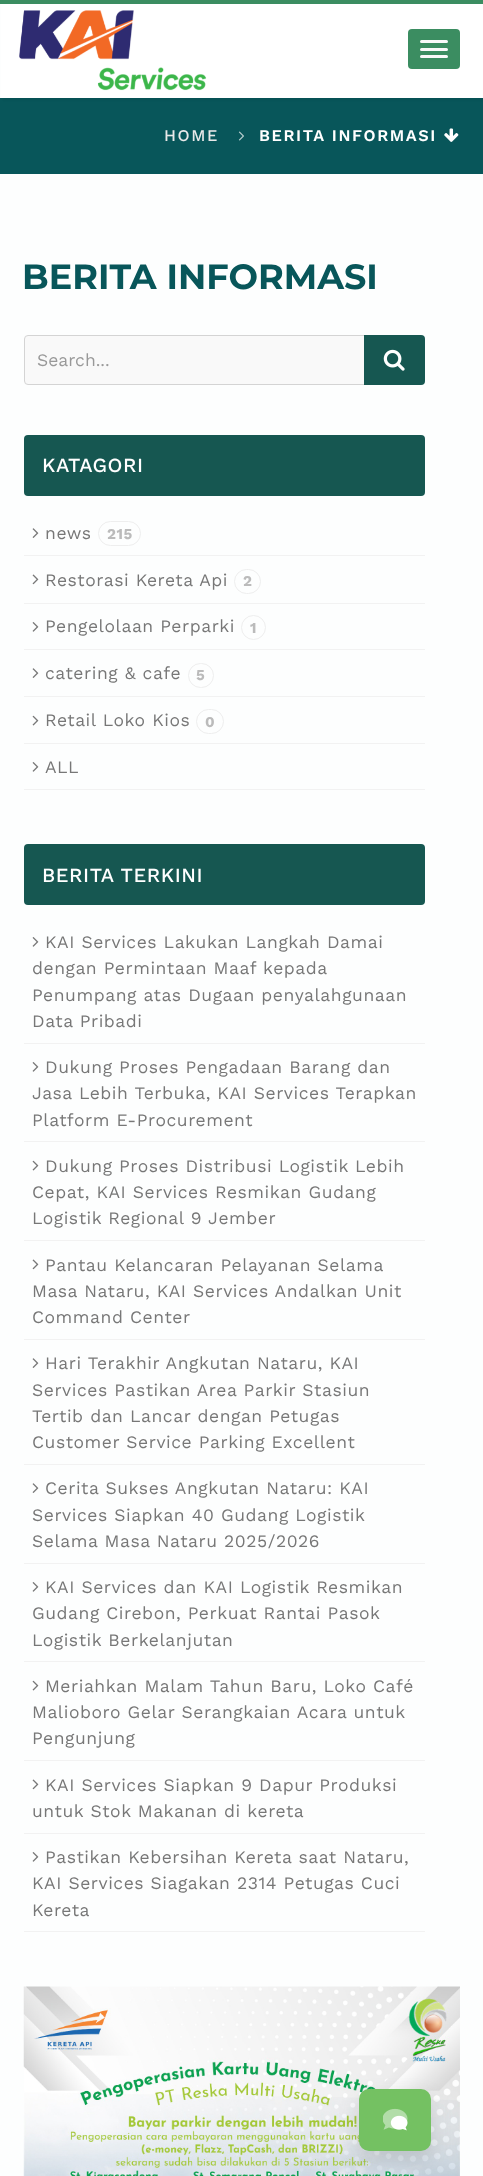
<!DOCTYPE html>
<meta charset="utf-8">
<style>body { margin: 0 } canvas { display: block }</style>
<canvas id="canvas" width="483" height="2176"></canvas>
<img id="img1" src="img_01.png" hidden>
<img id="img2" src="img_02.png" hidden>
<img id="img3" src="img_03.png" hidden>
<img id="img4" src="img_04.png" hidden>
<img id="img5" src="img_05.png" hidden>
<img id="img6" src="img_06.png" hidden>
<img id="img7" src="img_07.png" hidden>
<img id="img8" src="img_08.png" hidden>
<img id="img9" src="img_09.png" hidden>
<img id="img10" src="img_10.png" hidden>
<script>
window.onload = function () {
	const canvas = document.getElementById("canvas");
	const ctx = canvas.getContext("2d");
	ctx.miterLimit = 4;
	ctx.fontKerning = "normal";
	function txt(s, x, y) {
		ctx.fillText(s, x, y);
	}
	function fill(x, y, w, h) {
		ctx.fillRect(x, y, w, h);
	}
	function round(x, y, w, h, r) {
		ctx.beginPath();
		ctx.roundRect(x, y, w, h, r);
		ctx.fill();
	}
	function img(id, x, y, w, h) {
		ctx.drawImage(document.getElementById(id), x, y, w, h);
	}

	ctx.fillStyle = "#FDFEFE";
	fill(0, 0, 483, 2176);
	ctx.fillStyle = "#08565A";
	fill(0, 98, 483, 76);
	ctx.fillStyle = "rgba(5, 5, 5, 0.06)";
	ctx.filter = "blur(1px)";
	ctx.beginPath();
	ctx.rect(3, 3, 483, 97);
	ctx.fill();
	ctx.filter = "none";
	ctx.fillStyle = "#FFFFFF";
	fill(1, 4, 482, 94);
	ctx.fillStyle = "#3B8D61";
	fill(0, 0, 483, 4);
	img("img1", 19, 10, 188, 81);
	round(408, 29, 52, 40, 4);
	ctx.fillStyle = "#F9F9F9";
	round(420, 40, 28, 3, 1.5);
	round(420, 48, 28, 3, 1.5);
	round(420, 55, 28, 3, 1.5);
	img("img2", 238, 131, 6, 10);
	img("img3", 444, 128, 15, 14);
	ctx.beginPath();
	ctx.roundRect(24.5, 335.5, 340, 49, [3.5, 0, 0, 3.5]);
	ctx.fill();
	ctx.strokeStyle = "#D4D4D4";
	ctx.stroke();
	ctx.fillStyle = "#165751";
	ctx.beginPath();
	ctx.roundRect(364, 335, 61, 50, [0, 4, 4, 0]);
	ctx.fill();
	img("img4", 383, 349, 22, 22);
	round(24, 435, 401, 61, 4);
	ctx.fillStyle = "#F2F2F2";
	fill(24, 555, 401, 1);
	img("img5", 32, 528, 7, 10);
	ctx.beginPath();
	ctx.roundRect(98.5, 521.5, 42, 24, 12);
	ctx.strokeStyle = "#EEEEEE";
	ctx.stroke();
	fill(24, 603, 401, 1);
	img("img6", 32, 574, 7, 11);
	ctx.beginPath();
	ctx.roundRect(234.5, 569.5, 26, 24, 12);
	ctx.stroke();
	fill(24, 649, 401, 1);
	img("img7", 32, 622, 7, 10);
	ctx.beginPath();
	ctx.arc(253.5, 627.5, 12, 0, Math.PI * 2);
	ctx.stroke();
	fill(24, 696, 401, 1);
	img("img5", 32, 668, 7, 10);
	ctx.beginPath();
	ctx.roundRect(188.5, 663.5, 25, 24, 12);
	ctx.stroke();
	fill(24, 743, 401, 1);
	img("img8", 32, 715, 7, 11);
	ctx.beginPath();
	ctx.roundRect(196.5, 709.5, 27, 24, 12);
	ctx.stroke();
	fill(24, 789, 401, 1);
	img("img7", 32, 762, 7, 10);
	ctx.fillStyle = "#165751";
	round(24, 844, 401, 61, 4);
	ctx.fillStyle = "#F2F2F2";
	fill(24, 1043, 401, 1);
	img("img7", 32, 937, 7, 10);
	fill(24, 1141, 401, 1);
	img("img7", 32, 1062, 7, 10);
	fill(24, 1240, 401, 1);
	img("img8", 32, 1160, 7, 11);
	fill(24, 1339, 401, 1);
	img("img6", 32, 1259, 7, 11);
	fill(24, 1464, 401, 1);
	img("img5", 32, 1358, 7, 10);
	fill(24, 1563, 401, 1);
	img("img5", 32, 1483, 7, 10);
	fill(24, 1661, 401, 1);
	img("img7", 32, 1582, 7, 10);
	fill(24, 1760, 401, 1);
	img("img8", 32, 1680, 7, 11);
	fill(24, 1833, 401, 1);
	img("img6", 32, 1779, 7, 11);
	fill(24, 1931, 401, 1);
	img("img7", 32, 1852, 7, 10);
	img("img9", 23, 1986, 437, 190);
	ctx.fillStyle = "rgba(46, 46, 46, 0.15)";
	ctx.filter = "blur(10px)";
	ctx.beginPath();
	ctx.roundRect(359, 2098, 72, 62, 10);
	ctx.fill();
	ctx.filter = "none";
	ctx.fillStyle = "#74C162";
	round(359, 2089, 72, 62, 10);
	img("img10", 383, 2108, 25, 23);
	ctx.letterSpacing = "1.6px";
	ctx.font = "500 16.25px Work Sans";
	ctx.fillStyle = "#E9E9E9";
	txt("HOME", 164, 141);
	ctx.font = "600 16.25px Work Sans";
	ctx.fillStyle = "#FFFFFF";
	txt("BERITA INFORMASI", 259, 141);
	ctx.letterSpacing = "0px";
	ctx.font = "bold 35px Montserrat";
	ctx.fillStyle = "#08565A";
	txt("BERITA INFORMASI", 22, 289);
	ctx.font = "17.5px Work Sans";
	ctx.fillStyle = "#999999";
	txt("Search...", 37, 366);
	ctx.letterSpacing = "0.55px";
	ctx.font = "500 20px Work Sans";
	ctx.fillStyle = "#FFFFFF";
	txt("KATAGORI", 42, 472);
	ctx.font = "17.5px Work Sans";
	ctx.fillStyle = "#777777";
	txt("news", 45, 539);
	ctx.font = "bold 15px Work Sans";
	ctx.fillStyle = "#BBBBBB";
	txt("215", 107, 539);
	ctx.font = "17.5px Work Sans";
	ctx.fillStyle = "#777777";
	txt("Restorasi Kereta Api", 45, 586);
	ctx.font = "bold 15px Work Sans";
	ctx.fillStyle = "#BBBBBB";
	txt("2", 243, 586);
	ctx.font = "17.5px Work Sans";
	ctx.fillStyle = "#777777";
	txt("Pengelolaan Perparki", 45, 632);
	ctx.font = "bold 15px Work Sans";
	ctx.fillStyle = "#BBBBBB";
	txt("1", 250, 633);
	ctx.font = "17.5px Work Sans";
	ctx.fillStyle = "#777777";
	txt("catering & cafe", 45, 679);
	ctx.font = "bold 15px Work Sans";
	ctx.fillStyle = "#BBBBBB";
	txt("5", 196, 680);
	ctx.font = "17.5px Work Sans";
	ctx.fillStyle = "#777777";
	txt("Retail Loko Kios", 45, 726);
	ctx.font = "bold 15px Work Sans";
	ctx.fillStyle = "#BBBBBB";
	txt("0", 205, 727);
	ctx.font = "17.5px Work Sans";
	ctx.fillStyle = "#777777";
	txt("ALL", 45, 773);
	ctx.font = "500 20px Work Sans";
	ctx.fillStyle = "#FFFFFF";
	txt("BERITA TERKINI", 42, 882);
	ctx.font = "17.5px Work Sans";
	ctx.fillStyle = "#777777";
	txt("KAI Services Lakukan Langkah Damai", 45, 948);
	txt("dengan Permintaan Maaf kepada", 32, 974);
	txt("Penumpang atas Dugaan penyalahgunaan", 32, 1001);
	txt("Data Pribadi", 32, 1027);
	txt("Dukung Proses Pengadaan Barang dan", 45, 1073);
	txt("Jasa Lebih Terbuka, KAI Services Terapkan", 32, 1099);
	txt("Platform E-Procurement", 32, 1126);
	txt("Dukung Proses Distribusi Logistik Lebih", 45, 1172);
	txt("Cepat, KAI Services Resmikan Gudang", 32, 1198);
	txt("Logistik Regional 9 Jember", 32, 1224);
	txt("Pantau Kelancaran Pelayanan Selama", 45, 1271);
	txt("Masa Nataru, KAI Services Andalkan Unit", 32, 1297);
	txt("Command Center", 32, 1323);
	txt("Hari Terakhir Angkutan Nataru, KAI", 45, 1369);
	txt("Services Pastikan Area Parkir Stasiun", 32, 1396);
	txt("Tertib dan Lancar dengan Petugas", 32, 1422);
	txt("Customer Service Parking Excellent", 32, 1448);
	txt("Cerita Sukses Angkutan Nataru: KAI", 45, 1494);
	txt("Services Siapkan 40 Gudang Logistik", 32, 1521);
	txt("Selama Masa Nataru 2025/2026", 32, 1547);
	txt("KAI Services dan KAI Logistik Resmikan", 45, 1593);
	txt("Gudang Cirebon, Perkuat Rantai Pasok", 32, 1619);
	txt("Logistik Berkelanjutan", 32, 1646);
	txt("Meriahkan Malam Tahun Baru, Loko Café", 45, 1692);
	txt("Malioboro Gelar Serangkaian Acara untuk", 32, 1718);
	txt("Pengunjung", 32, 1744);
	txt("KAI Services Siapkan 9 Dapur Produksi", 45, 1791);
	txt("untuk Stok Makanan di kereta", 32, 1817);
	txt("Pastikan Kebersihan Kereta saat Nataru,", 45, 1863);
	txt("KAI Services Siagakan 2314 Petugas Cuci", 32, 1889);
	txt("Kereta", 32, 1916);
};
</script>
